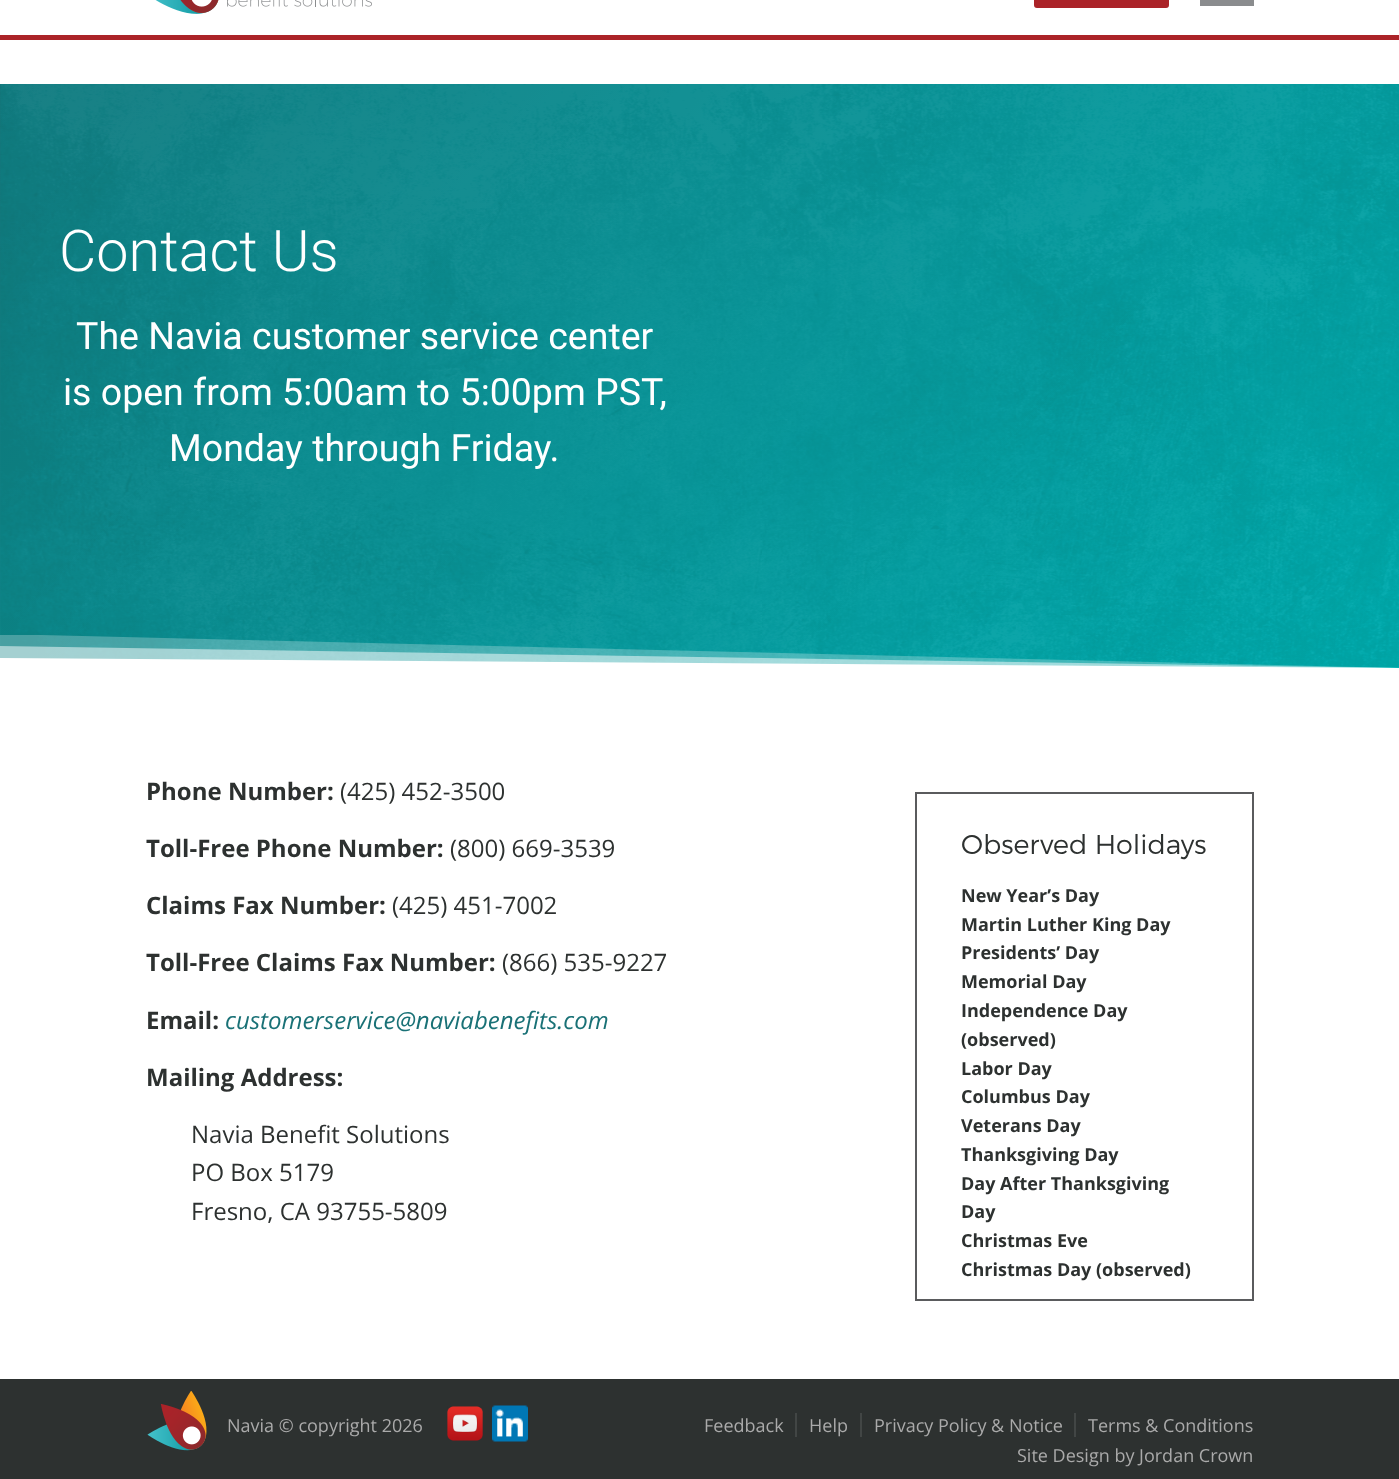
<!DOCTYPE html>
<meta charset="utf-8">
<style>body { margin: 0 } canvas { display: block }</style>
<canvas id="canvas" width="1399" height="1479"></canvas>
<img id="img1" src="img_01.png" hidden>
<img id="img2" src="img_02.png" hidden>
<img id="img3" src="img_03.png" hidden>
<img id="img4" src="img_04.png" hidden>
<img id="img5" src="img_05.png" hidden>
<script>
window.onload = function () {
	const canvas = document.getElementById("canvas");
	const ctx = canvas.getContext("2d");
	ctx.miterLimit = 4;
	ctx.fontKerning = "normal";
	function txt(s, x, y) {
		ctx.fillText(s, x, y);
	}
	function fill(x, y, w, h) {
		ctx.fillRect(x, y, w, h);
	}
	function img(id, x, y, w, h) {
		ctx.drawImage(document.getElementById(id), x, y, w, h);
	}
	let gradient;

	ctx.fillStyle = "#FFFFFF";
	fill(0, 0, 1399, 1479);
	ctx.fillStyle = "#AB2328";
	fill(0, 35, 1399, 5);
	img("img1", 155, 0, 217, 14);
	ctx.beginPath();
	ctx.roundRect(1035, -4, 133, 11, 2);
	ctx.fill();
	ctx.strokeStyle = "#AB2328";
	ctx.lineWidth = 2;
	ctx.stroke();
	ctx.fillStyle = "#8A8C8E";
	fill(1200, 0, 54, 6);
	gradient = ctx.createLinearGradient(204, -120, 1197, 872);
	gradient.addColorStop(0, "#1B7076");
	gradient.addColorStop(1, "#00C1C4");
	ctx.fillStyle = gradient;
	fill(0, 84, 1399, 584);
	img("img2", 0, 84, 1399, 584);
	ctx.save();
	ctx.beginPath();
	ctx.rect(0, 635, 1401, 33);
	ctx.clip();
	ctx.fillStyle = "rgba(255, 255, 255, 0.25)";
	ctx.beginPath();
	ctx.moveTo(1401, 668);
	ctx.lineTo(0, 634);
	ctx.lineTo(0, 668);
	ctx.closePath();
	ctx.fill();
	ctx.restore();
	ctx.fillStyle = "rgba(255, 255, 255, 0.5)";
	ctx.beginPath();
	ctx.moveTo(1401, 668);
	ctx.lineTo(0, 646);
	ctx.lineTo(0, 668);
	ctx.closePath();
	ctx.fill();
	ctx.fillStyle = "#FFFFFF";
	ctx.beginPath();
	ctx.moveTo(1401, 668);
	ctx.lineTo(0, 658);
	ctx.lineTo(0, 668);
	ctx.closePath();
	ctx.fill();
	ctx.strokeStyle = "#5A5B5D";
	ctx.strokeRect(916, 793, 337, 507);
	ctx.fillStyle = "#2D3130";
	fill(0, 1379, 1399, 100);
	img("img3", 147, 1391, 60, 60);
	img("img4", 447, 1406, 36, 35);
	img("img5", 492, 1405, 36, 37);
	ctx.fillStyle = "#424645";
	fill(795, 1413, 2, 24);
	fill(860, 1413, 2, 24);
	fill(1074, 1413, 2, 24);
	ctx.font = "300 57.5px Roboto";
	ctx.fillStyle = "#FFFFFF";
	txt("Contact Us", 59, 271);
	ctx.font = "37.5px Roboto";
	txt("The Navia customer service center", 76, 349);
	txt("is open from 5:00am to 5:00pm PST,", 63, 405);
	txt("Monday through Friday.", 169, 461);
	ctx.font = "bold 24px Open Sans";
	ctx.fillStyle = "#2D3130";
	txt("Phone Number:", 146, 800);
	ctx.font = "24px Open Sans";
	txt("(425) 452-3500", 340, 800);
	ctx.font = "bold 24px Open Sans";
	txt("Toll-Free Phone Number:", 146, 857);
	ctx.font = "24px Open Sans";
	txt("(800) 669-3539", 450, 857);
	ctx.font = "bold 24px Open Sans";
	txt("Claims Fax Number:", 146, 914);
	ctx.font = "24px Open Sans";
	txt("(425) 451-7002", 392, 914);
	ctx.font = "bold 24px Open Sans";
	txt("Toll-Free Claims Fax Number:", 146, 971);
	ctx.font = "24px Open Sans";
	txt("(866) 535-9227", 502, 971);
	ctx.font = "bold 24px Open Sans";
	txt("Email:", 146, 1029);
	ctx.font = "italic 24px Open Sans";
	ctx.fillStyle = "#197176";
	txt("customerservice@naviabenefits.com", 225, 1029);
	ctx.font = "bold 24px Open Sans";
	ctx.fillStyle = "#2D3130";
	txt("Mailing Address:", 146, 1086);
	ctx.font = "24px Open Sans";
	txt("Navia Benefit Solutions", 191, 1143);
	txt("PO Box 5179", 191, 1181);
	txt("Fresno, CA 93755-5809", 191, 1220);
	ctx.font = "300 27px Montserrat";
	txt("Observed Holidays", 961, 854);
	ctx.font = "bold 18px Open Sans";
	txt("New Year’s Day", 961, 902);
	txt("Martin Luther King Day", 961, 931);
	txt("Presidents’ Day", 961, 959);
	txt("Memorial Day", 961, 988);
	txt("Independence Day", 961, 1017);
	txt("(observed)", 961, 1046);
	txt("Labor Day", 961, 1075);
	txt("Columbus Day", 961, 1103);
	txt("Veterans Day", 961, 1132);
	txt("Thanksgiving Day", 961, 1161);
	txt("Day After Thanksgiving", 961, 1190);
	txt("Day", 961, 1218);
	txt("Christmas Eve", 961, 1247);
	txt("Christmas Day (observed)", 961, 1276);
	ctx.font = "18px Open Sans";
	ctx.fillStyle = "#AAAAAA";
	txt("Navia © copyright 2026", 227, 1432);
	txt("Feedback", 704, 1432);
	txt("Help", 809, 1432);
	txt("Privacy Policy & Notice", 874, 1432);
	txt("Terms & Conditions", 1088, 1432);
	txt("Site Design by Jordan Crown", 1017, 1462);
};
</script>
